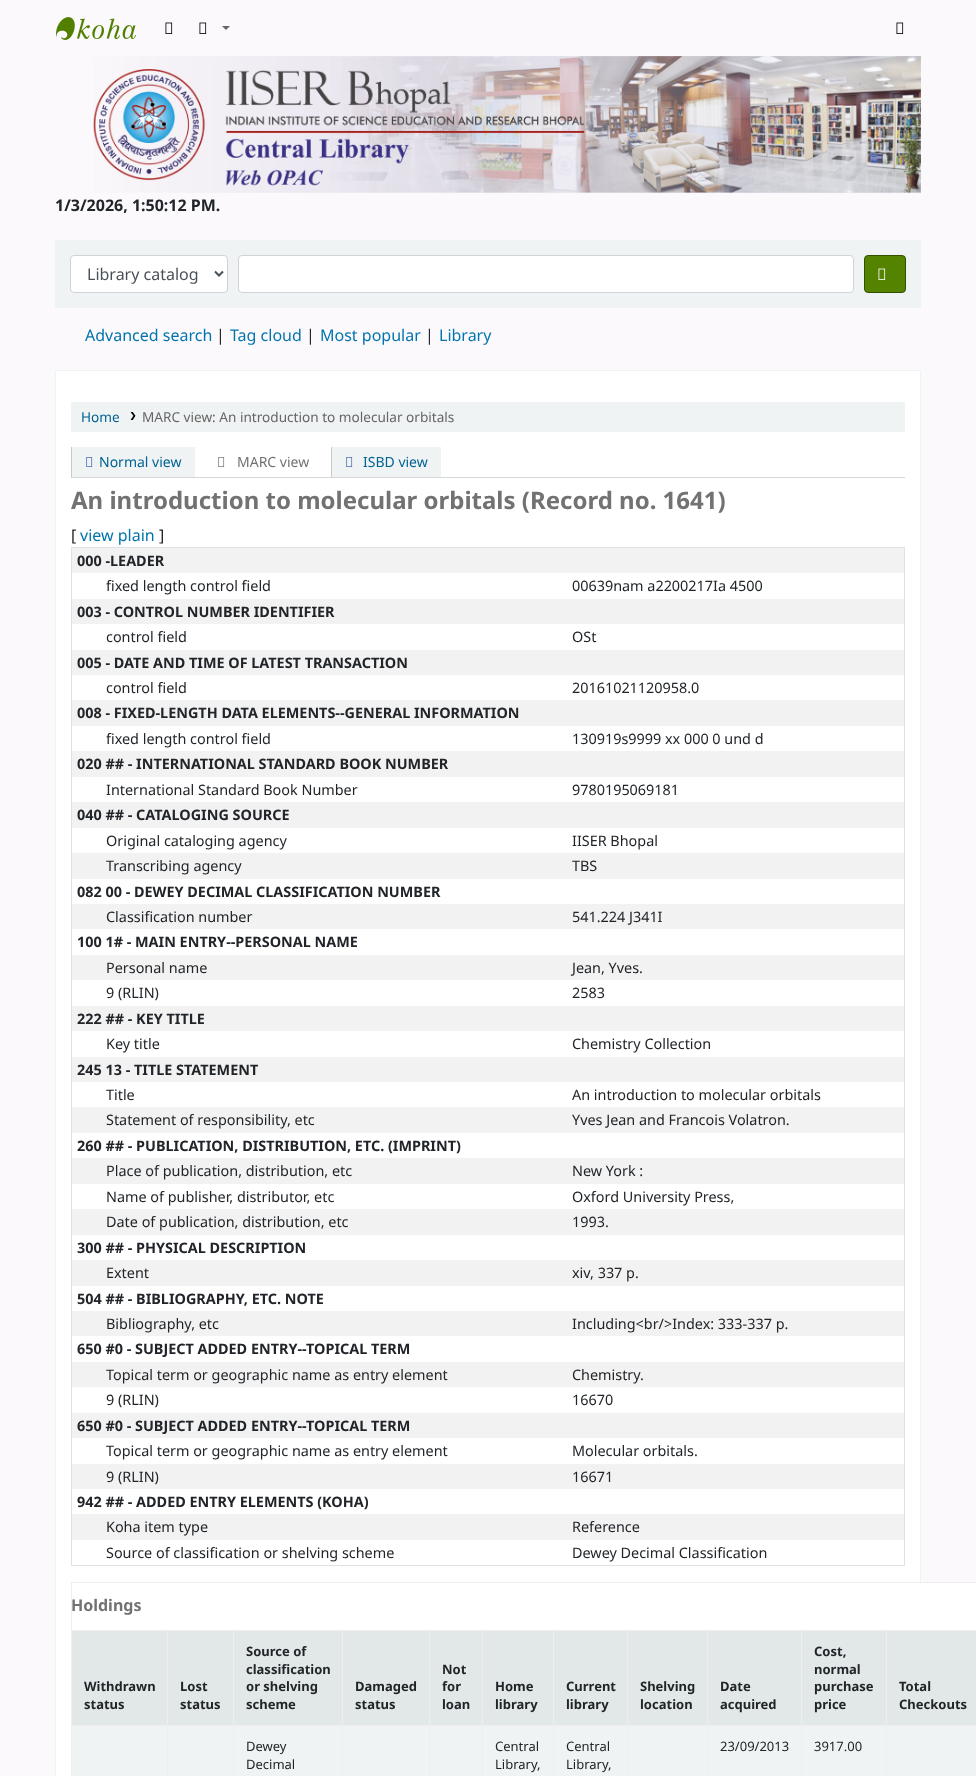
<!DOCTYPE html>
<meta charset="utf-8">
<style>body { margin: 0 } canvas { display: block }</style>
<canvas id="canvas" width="976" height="1776"></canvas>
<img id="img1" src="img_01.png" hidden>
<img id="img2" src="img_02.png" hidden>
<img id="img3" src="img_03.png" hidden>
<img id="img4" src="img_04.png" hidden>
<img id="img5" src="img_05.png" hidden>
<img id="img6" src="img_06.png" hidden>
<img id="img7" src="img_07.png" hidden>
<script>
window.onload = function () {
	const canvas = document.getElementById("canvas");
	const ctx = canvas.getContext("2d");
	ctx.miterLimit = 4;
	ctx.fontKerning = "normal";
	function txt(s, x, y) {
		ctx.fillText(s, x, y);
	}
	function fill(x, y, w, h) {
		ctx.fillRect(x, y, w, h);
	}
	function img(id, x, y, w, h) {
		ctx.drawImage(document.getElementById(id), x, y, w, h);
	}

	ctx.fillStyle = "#FCF9FC";
	fill(0, 0, 976, 1776);
	img("img1", 56, 17, 80, 23);
	img("img2", 165, 22, 8, 12);
	img("img2", 199, 22, 8, 12);
	ctx.fillStyle = "#666666";
	ctx.beginPath();
	ctx.moveTo(222, 26);
	ctx.lineTo(230, 26);
	ctx.lineTo(226, 30);
	ctx.closePath();
	ctx.fill();
	img("img2", 896, 22, 8, 12);
	img("img3", 93, 56, 828, 137);
	ctx.fillStyle = "#F0F3F3";
	fill(55, 240, 866, 68);
	ctx.fillStyle = "#FFFFFF";
	ctx.beginPath();
	ctx.roundRect(70.5, 255.5, 157, 37, 3.5);
	ctx.fill();
	ctx.strokeStyle = "#CED4DA";
	ctx.stroke();
	ctx.beginPath();
	ctx.moveTo(215, 271.5);
	ctx.lineTo(219, 275.5);
	ctx.lineTo(223, 271.5);
	ctx.strokeStyle = "#495057";
	ctx.lineWidth = 2;
	ctx.stroke();
	ctx.beginPath();
	ctx.roundRect(238.5, 255.5, 615, 37, 3.5);
	ctx.fill();
	ctx.strokeStyle = "#CED4DA";
	ctx.lineWidth = 1;
	ctx.stroke();
	ctx.fillStyle = "#548300";
	ctx.beginPath();
	ctx.roundRect(864.5, 255.5, 41, 37, 3.5);
	ctx.fill();
	ctx.strokeStyle = "#335000";
	ctx.stroke();
	img("img4", 878, 268, 8, 12);
	ctx.fillStyle = "#FFFFFF";
	ctx.beginPath();
	ctx.rect(55.5, 370.5, 865, 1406);
	ctx.fill();
	ctx.strokeStyle = "#F0F3F3";
	ctx.stroke();
	ctx.fillStyle = "#F0F3F3";
	fill(71, 402, 834, 30);
	img("img5", 130, 412, 6, 8);
	ctx.fillStyle = "#D6D6D6";
	fill(71, 477, 834, 1);
	ctx.fillStyle = "#F0F3F3";
	fill(72, 447, 123, 30);
	ctx.fillStyle = "#C9C9C9";
	fill(71, 447, 1, 30);
	img("img6", 86, 457, 7, 10);
	img("img7", 218, 457, 7, 10);
	ctx.fillStyle = "#F0F3F3";
	fill(332, 447, 109, 30);
	ctx.fillStyle = "#C9C9C9";
	fill(331, 447, 1, 30);
	img("img6", 346, 457, 7, 10);
	ctx.fillStyle = "#DEE2E6";
	fill(71, 547, 834, 1);
	fill(904, 547, 1, 1019);
	fill(71, 1565, 834, 1);
	fill(71, 547, 1, 1019);
	ctx.fillStyle = "#F2F2F2";
	fill(72, 548, 832, 25);
	fill(72, 599, 832, 25);
	fill(72, 650, 832, 25);
	fill(72, 700, 832, 26);
	fill(72, 751, 832, 26);
	fill(72, 802, 832, 26);
	fill(72, 853, 832, 26);
	fill(72, 904, 832, 25);
	fill(72, 955, 832, 25);
	fill(72, 1006, 832, 25);
	fill(72, 1057, 832, 25);
	fill(72, 1107, 832, 26);
	fill(72, 1158, 832, 26);
	fill(72, 1209, 832, 26);
	fill(72, 1260, 832, 26);
	fill(72, 1311, 832, 25);
	fill(72, 1362, 832, 25);
	fill(72, 1413, 832, 25);
	fill(72, 1464, 832, 25);
	fill(72, 1514, 832, 26);
	ctx.fillStyle = "#FFFFFF";
	fill(920, 1583, 56, 47);
	ctx.fillStyle = "#EEEEEE";
	fill(71, 1582, 905, 1);
	fill(71, 1582, 1, 194);
	ctx.fillStyle = "#E2E8E8";
	fill(72, 1631, 95, 94);
	ctx.fillStyle = "#EEEEEE";
	fill(886, 1630, 90, 1);
	fill(886, 1725, 90, 1);
	fill(886, 1725, 1, 51);
	fill(801, 1725, 86, 1);
	fill(886, 1630, 1, 96);
	fill(801, 1630, 86, 1);
	fill(801, 1725, 1, 51);
	fill(707, 1725, 95, 1);
	fill(801, 1630, 1, 96);
	fill(707, 1630, 95, 1);
	fill(707, 1725, 1, 51);
	fill(627, 1725, 81, 1);
	fill(707, 1630, 1, 96);
	fill(627, 1630, 81, 1);
	fill(627, 1725, 1, 51);
	fill(553, 1725, 75, 1);
	fill(627, 1630, 1, 96);
	fill(553, 1630, 75, 1);
	fill(553, 1725, 1, 51);
	fill(482, 1725, 72, 1);
	fill(553, 1630, 1, 96);
	fill(482, 1630, 72, 1);
	fill(482, 1725, 1, 51);
	fill(429, 1725, 54, 1);
	fill(482, 1630, 1, 96);
	fill(429, 1630, 54, 1);
	fill(429, 1725, 1, 51);
	fill(342, 1725, 88, 1);
	fill(429, 1630, 1, 96);
	fill(342, 1630, 88, 1);
	fill(342, 1725, 1, 51);
	fill(233, 1725, 110, 1);
	fill(342, 1630, 1, 96);
	fill(233, 1630, 110, 1);
	fill(233, 1725, 1, 51);
	fill(167, 1725, 67, 1);
	fill(233, 1630, 1, 96);
	fill(167, 1630, 67, 1);
	fill(167, 1725, 1, 51);
	fill(71, 1725, 97, 1);
	fill(167, 1630, 1, 96);
	fill(71, 1630, 97, 1);
	ctx.fillStyle = "#E2E8E8";
	fill(168, 1631, 65, 94);
	fill(234, 1631, 108, 94);
	fill(343, 1631, 86, 94);
	fill(430, 1631, 52, 94);
	fill(483, 1631, 70, 94);
	fill(554, 1631, 73, 94);
	fill(628, 1631, 79, 94);
	fill(708, 1631, 93, 94);
	fill(802, 1631, 84, 94);
	fill(887, 1631, 89, 94);
	ctx.fillStyle = "#F0F3F3";
	fill(72, 1726, 95, 50);
	fill(168, 1726, 65, 50);
	fill(234, 1726, 108, 50);
	fill(343, 1726, 86, 50);
	fill(430, 1726, 52, 50);
	fill(483, 1726, 70, 50);
	fill(554, 1726, 73, 50);
	fill(628, 1726, 79, 50);
	fill(708, 1726, 93, 50);
	fill(802, 1726, 84, 50);
	fill(887, 1726, 89, 50);
	ctx.font = "bold 16px Noto Sans";
	ctx.fillStyle = "#212529";
	txt("1/3/2026, 1:50:12 PM.", 55, 211);
	ctx.font = "16px Noto Sans";
	ctx.fillStyle = "#495057";
	txt("Library catalog", 87, 280);
	ctx.fillStyle = "#0074AD";
	txt("Advanced search", 85, 341);
	ctx.fillStyle = "#212529";
	txt("|", 216, 341);
	ctx.fillStyle = "#0074AD";
	txt("Tag cloud", 230, 341);
	ctx.fillStyle = "#212529";
	txt("|", 306, 341);
	ctx.fillStyle = "#0074AD";
	txt("Most popular", 320, 341);
	ctx.fillStyle = "#212529";
	txt("|", 425, 341);
	ctx.fillStyle = "#0074AD";
	txt("Library", 439, 341);
	ctx.font = "13.6px Noto Sans";
	ctx.fillStyle = "#006394";
	txt("Home", 81, 422);
	ctx.fillStyle = "#666666";
	txt("MARC view: An introduction to molecular orbitals", 142, 422);
	ctx.font = "14px Noto Sans";
	ctx.fillStyle = "#006394";
	txt("Normal view", 99, 467);
	ctx.fillStyle = "#727272";
	txt("MARC view", 237, 467);
	ctx.fillStyle = "#006394";
	txt("ISBD view", 363, 467);
	ctx.font = "bold 24px Noto Sans";
	ctx.fillStyle = "#727272";
	txt("An introduction to molecular orbitals (Record no. 1641)", 71, 509);
	ctx.font = "16px Noto Sans";
	ctx.fillStyle = "#212529";
	txt("[", 71, 541);
	ctx.fillStyle = "#0074AD";
	txt("view plain", 80, 541);
	ctx.fillStyle = "#212529";
	txt("]", 159, 541);
	ctx.font = "bold 14.4px Noto Sans";
	txt("000 -LEADER", 77, 566);
	ctx.font = "14.4px Noto Sans";
	txt("fixed length control field", 106, 591);
	txt("00639nam a2200217Ia 4500", 572, 591);
	ctx.font = "bold 14.4px Noto Sans";
	txt("003 - CONTROL NUMBER IDENTIFIER", 77, 617);
	ctx.font = "14.4px Noto Sans";
	txt("control field", 106, 642);
	txt("OSt", 572, 642);
	ctx.font = "bold 14.4px Noto Sans";
	txt("005 - DATE AND TIME OF LATEST TRANSACTION", 77, 668);
	ctx.font = "14.4px Noto Sans";
	txt("control field", 106, 693);
	txt("20161021120958.0", 572, 693);
	ctx.font = "bold 14.4px Noto Sans";
	txt("008 - FIXED-LENGTH DATA ELEMENTS--GENERAL INFORMATION", 77, 718);
	ctx.font = "14.4px Noto Sans";
	txt("fixed length control field", 106, 744);
	txt("130919s9999 xx 000 0 und d", 572, 744);
	ctx.font = "bold 14.4px Noto Sans";
	txt("020 ## - INTERNATIONAL STANDARD BOOK NUMBER", 77, 769);
	ctx.font = "14.4px Noto Sans";
	txt("International Standard Book Number", 106, 795);
	txt("9780195069181", 572, 795);
	ctx.font = "bold 14.4px Noto Sans";
	txt("040 ## - CATALOGING SOURCE", 77, 820);
	ctx.font = "14.4px Noto Sans";
	txt("Original cataloging agency", 106, 846);
	txt("IISER Bhopal", 572, 846);
	txt("Transcribing agency", 106, 871);
	txt("TBS", 572, 871);
	ctx.font = "bold 14.4px Noto Sans";
	txt("082 00 - DEWEY DECIMAL CLASSIFICATION NUMBER", 77, 897);
	ctx.font = "14.4px Noto Sans";
	txt("Classification number", 106, 922);
	txt("541.224 J341I", 572, 922);
	ctx.font = "bold 14.4px Noto Sans";
	txt("100 1# - MAIN ENTRY--PERSONAL NAME", 77, 947);
	ctx.font = "14.4px Noto Sans";
	txt("Personal name", 106, 973);
	txt("Jean, Yves.", 572, 973);
	txt("9 (RLIN)", 106, 998);
	txt("2583", 572, 998);
	ctx.font = "bold 14.4px Noto Sans";
	txt("222 ## - KEY TITLE", 77, 1024);
	ctx.font = "14.4px Noto Sans";
	txt("Key title", 106, 1049);
	txt("Chemistry Collection", 572, 1049);
	ctx.font = "bold 14.4px Noto Sans";
	txt("245 13 - TITLE STATEMENT", 77, 1075);
	ctx.font = "14.4px Noto Sans";
	txt("Title", 106, 1100);
	txt("An introduction to molecular orbitals", 572, 1100);
	txt("Statement of responsibility, etc", 106, 1125);
	txt("Yves Jean and Francois Volatron.", 572, 1125);
	ctx.font = "bold 14.4px Noto Sans";
	txt("260 ## - PUBLICATION, DISTRIBUTION, ETC. (IMPRINT)", 77, 1151);
	ctx.font = "14.4px Noto Sans";
	txt("Place of publication, distribution, etc", 106, 1176);
	txt("New York :", 572, 1176);
	txt("Name of publisher, distributor, etc", 106, 1202);
	txt("Oxford University Press,", 572, 1202);
	txt("Date of publication, distribution, etc", 106, 1227);
	txt("1993.", 572, 1227);
	ctx.font = "bold 14.4px Noto Sans";
	txt("300 ## - PHYSICAL DESCRIPTION", 77, 1253);
	ctx.font = "14.4px Noto Sans";
	txt("Extent", 106, 1278);
	txt("xiv, 337 p.", 572, 1278);
	ctx.font = "bold 14.4px Noto Sans";
	txt("504 ## - BIBLIOGRAPHY, ETC. NOTE", 77, 1304);
	ctx.font = "14.4px Noto Sans";
	txt("Bibliography, etc", 106, 1329);
	txt("Including<br/>Index: 333-337 p.", 572, 1329);
	ctx.font = "bold 14.4px Noto Sans";
	txt("650 #0 - SUBJECT ADDED ENTRY--TOPICAL TERM", 77, 1354);
	ctx.font = "14.4px Noto Sans";
	txt("Topical term or geographic name as entry element", 106, 1380);
	txt("Chemistry.", 572, 1380);
	txt("9 (RLIN)", 106, 1405);
	txt("16670", 572, 1405);
	ctx.font = "bold 14.4px Noto Sans";
	txt("650 #0 - SUBJECT ADDED ENTRY--TOPICAL TERM", 77, 1431);
	ctx.font = "14.4px Noto Sans";
	txt("Topical term or geographic name as entry element", 106, 1456);
	txt("Molecular orbitals.", 572, 1456);
	txt("9 (RLIN)", 106, 1482);
	txt("16671", 572, 1482);
	ctx.font = "bold 14.4px Noto Sans";
	txt("942 ## - ADDED ENTRY ELEMENTS (KOHA)", 77, 1507);
	ctx.font = "14.4px Noto Sans";
	txt("Koha item type", 106, 1532);
	txt("Reference", 572, 1532);
	txt("Source of classification or shelving scheme", 106, 1558);
	txt("Dewey Decimal Classification", 572, 1558);
	ctx.font = "bold 16px Noto Sans";
	ctx.fillStyle = "#727272";
	txt("Holdings", 71, 1611);
	ctx.font = "bold 13px Noto Sans";
	ctx.fillStyle = "#212529";
	txt("Withdrawn", 84, 1691);
	txt("status", 84, 1709);
	txt("Lost", 180, 1691);
	txt("status", 180, 1709);
	txt("Source of", 246, 1656);
	txt("classification", 246, 1674);
	txt("or shelving", 246, 1691);
	txt("scheme", 246, 1709);
	txt("Damaged", 355, 1691);
	txt("status", 355, 1709);
	txt("Not", 442, 1674);
	txt("for", 442, 1691);
	txt("loan", 442, 1709);
	txt("Home", 495, 1691);
	txt("library", 495, 1709);
	txt("Current", 566, 1691);
	txt("library", 566, 1709);
	txt("Shelving", 640, 1691);
	txt("location", 640, 1709);
	txt("Date", 720, 1691);
	txt("acquired", 720, 1709);
	txt("Cost,", 814, 1656);
	txt("normal", 814, 1674);
	txt("purchase", 814, 1691);
	txt("price", 814, 1709);
	txt("Total", 899, 1691);
	txt("Checkouts", 899, 1709);
	ctx.font = "13px Noto Sans";
	txt("Dewey", 246, 1751);
	txt("Decimal", 246, 1769);
	txt("Central", 495, 1751);
	txt("Library,", 495, 1769);
	txt("Central", 566, 1751);
	txt("Library,", 566, 1769);
	txt("23/09/2013", 720, 1751);
	txt("3917.00", 814, 1751);
};
</script>
